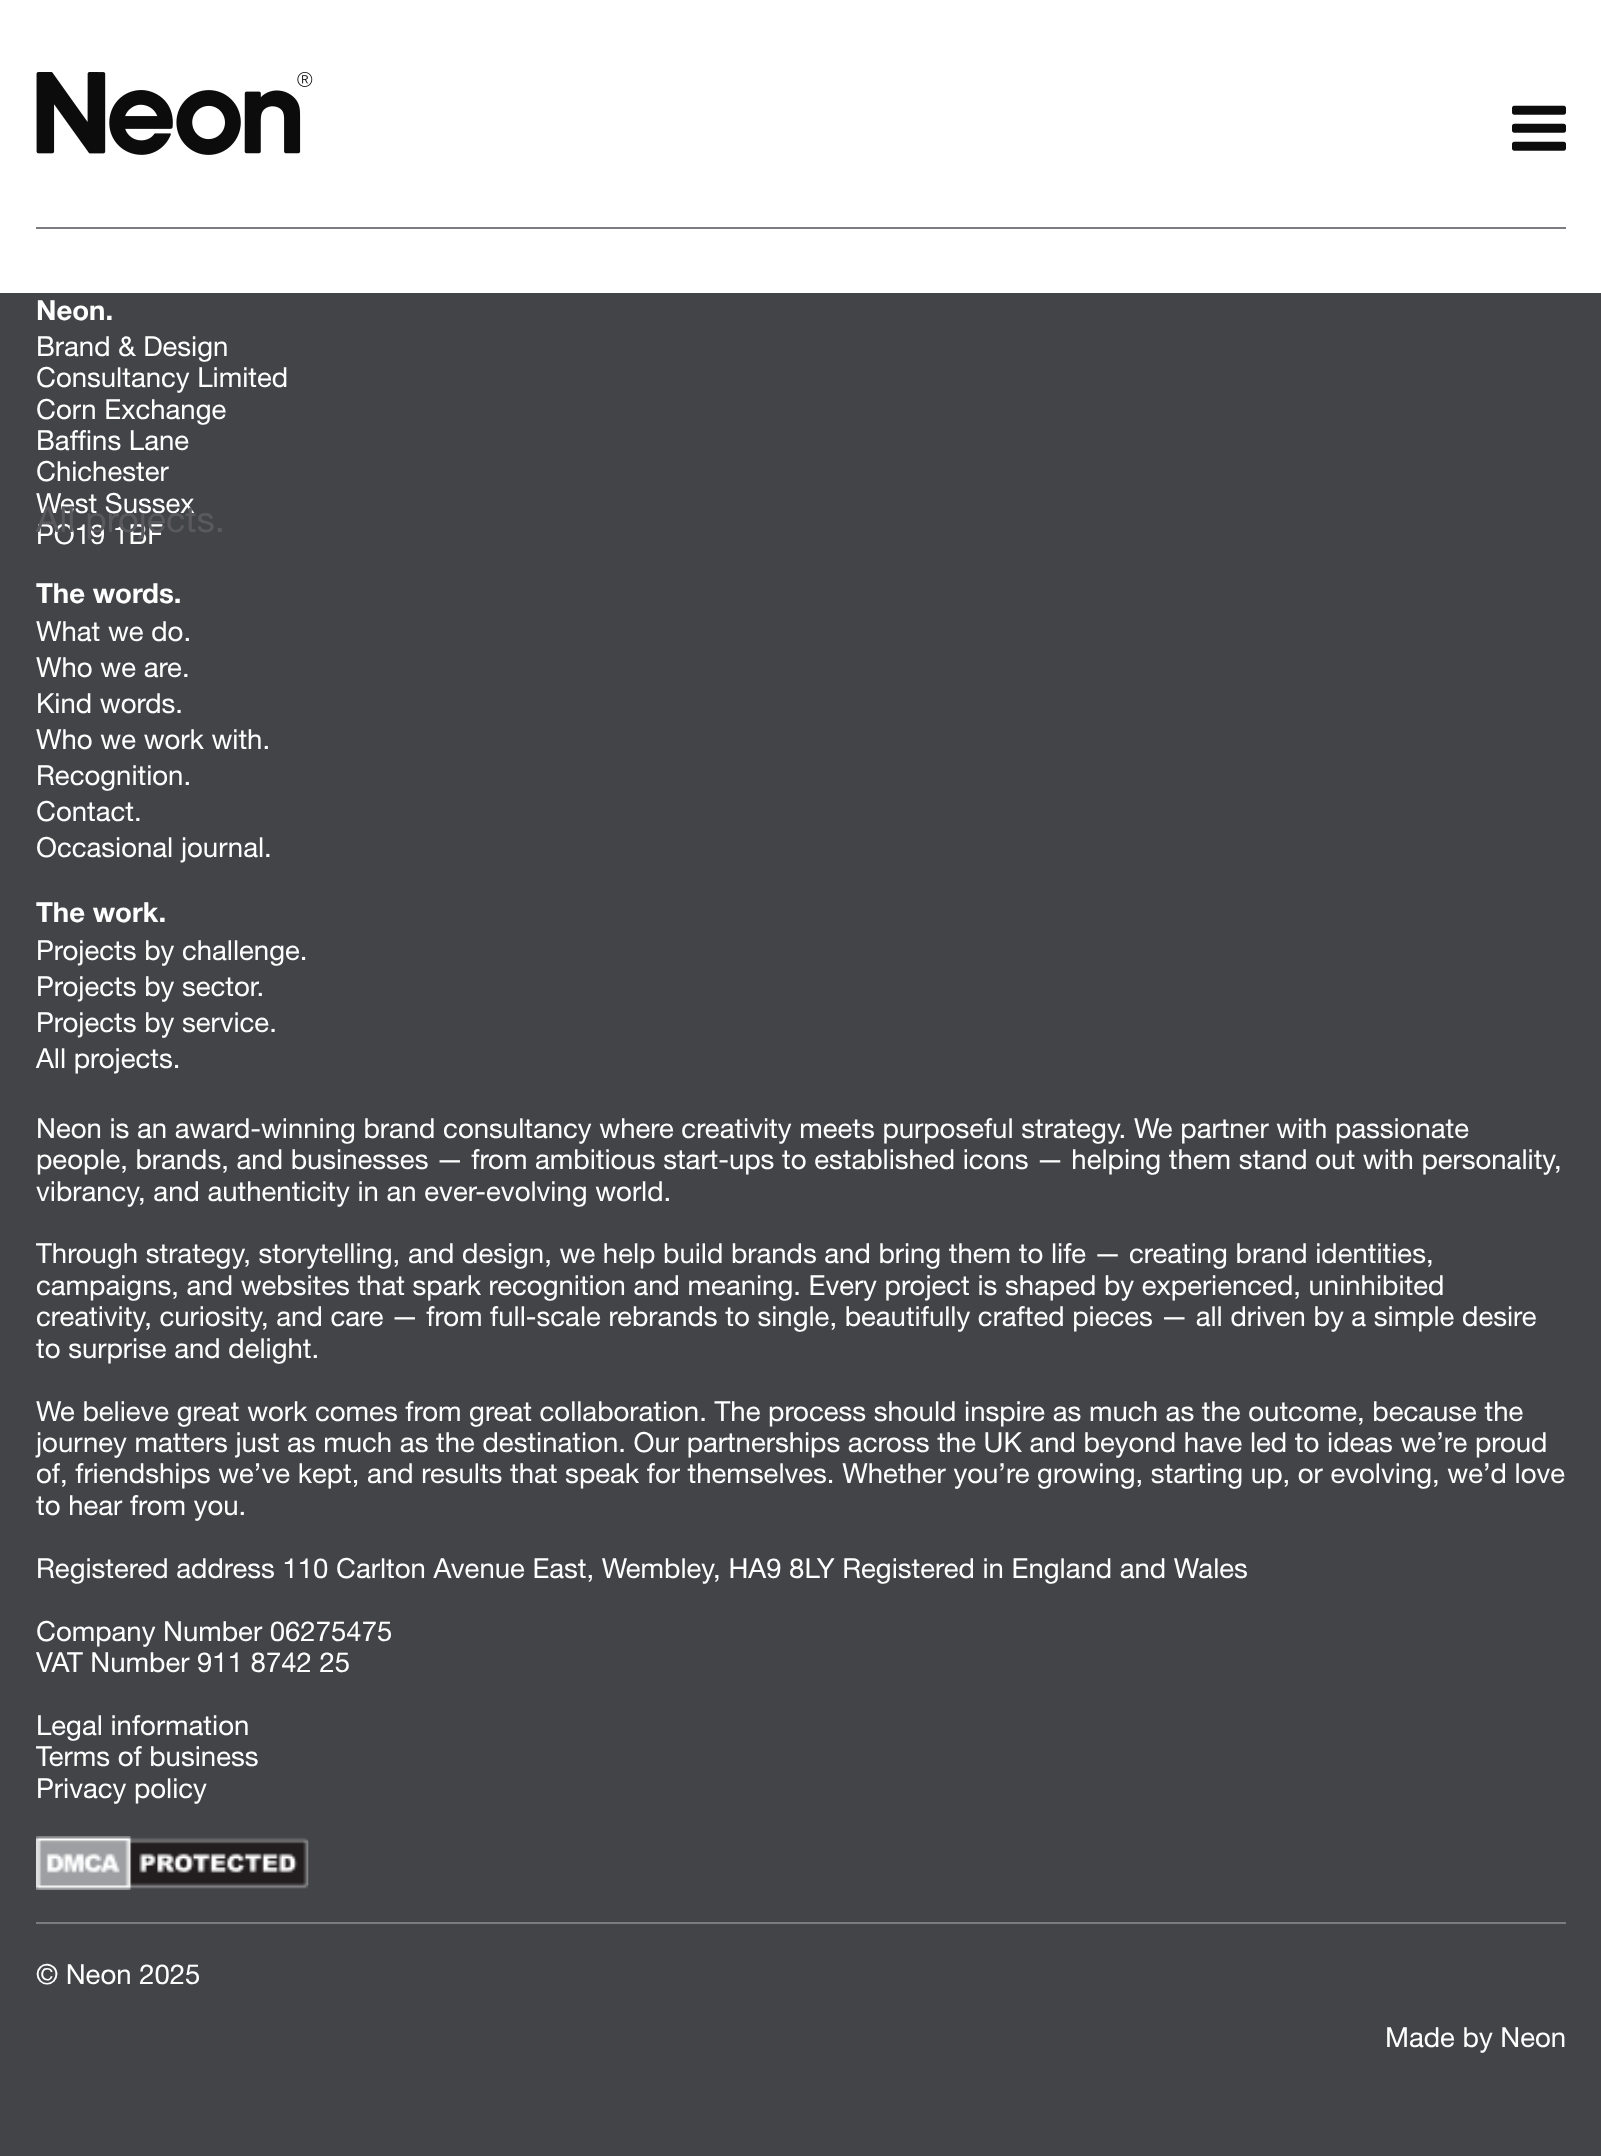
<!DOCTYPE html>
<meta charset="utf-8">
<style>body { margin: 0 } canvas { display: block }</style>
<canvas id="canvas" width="1601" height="2156"></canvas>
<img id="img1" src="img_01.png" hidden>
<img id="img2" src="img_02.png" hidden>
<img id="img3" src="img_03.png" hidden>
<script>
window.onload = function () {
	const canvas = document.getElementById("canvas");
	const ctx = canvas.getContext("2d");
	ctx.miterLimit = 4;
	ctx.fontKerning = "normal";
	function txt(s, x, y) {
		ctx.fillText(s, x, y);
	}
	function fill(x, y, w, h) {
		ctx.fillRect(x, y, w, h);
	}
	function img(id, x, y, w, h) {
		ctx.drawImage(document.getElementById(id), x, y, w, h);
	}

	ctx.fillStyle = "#434448";
	fill(0, 0, 1601, 2156);
	img("img1", 36, 1836, 273, 54);
	ctx.fillStyle = "#7B7C7F";
	fill(36, 1922, 1530, 2);
	ctx.fillStyle = "#FFFFFF";
	fill(0, 0, 1601, 293);
	img("img2", 36, 72, 277, 83);
	img("img3", 1512, 105, 54, 46);
	ctx.fillStyle = "#7B7C7F";
	fill(36, 227, 1530, 2);
	ctx.font = "bold 27.55px 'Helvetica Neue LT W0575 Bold'";
	ctx.fillStyle = "#FFFFFF";
	txt("Neon.", 36, 320);
	ctx.font = "27.55px 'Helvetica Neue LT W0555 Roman'";
	txt("Brand & Design", 36, 356);
	txt("Consultancy Limited", 36, 387);
	txt("Corn Exchange", 36, 419);
	txt("Baffins Lane", 36, 450);
	txt("Chichester", 36, 481);
	txt("West Sussex", 36, 513);
	txt("PO19 1BF", 36, 544);
	ctx.font = "bold 27.55px 'Helvetica Neue LT W0575 Bold'";
	txt("The words.", 36, 603);
	ctx.font = "27.55px 'Helvetica Neue LT W0555 Roman'";
	txt("What we do.", 36, 641);
	txt("Who we are.", 36, 677);
	txt("Kind words.", 36, 713);
	txt("Who we work with.", 36, 749);
	txt("Recognition.", 36, 785);
	txt("Contact.", 36, 821);
	txt("Occasional journal.", 36, 857);
	ctx.font = "bold 27.55px 'Helvetica Neue LT W0575 Bold'";
	txt("The work.", 36, 922);
	ctx.font = "27.55px 'Helvetica Neue LT W0555 Roman'";
	txt("Projects by challenge.", 36, 960);
	txt("Projects by sector.", 36, 996);
	txt("Projects by service.", 36, 1032);
	txt("All projects.", 36, 1068);
	txt("Neon is an award-winning brand consultancy where creativity meets purposeful strategy. We partner with passionate", 36, 1138);
	txt("people, brands, and businesses — from ambitious start-ups to established icons — helping them stand out with personality,", 36, 1169);
	txt("vibrancy, and authenticity in an ever-evolving world.", 36, 1201);
	txt("Through strategy, storytelling, and design, we help build brands and bring them to life — creating brand identities,", 36, 1263);
	txt("campaigns, and websites that spark recognition and meaning. Every project is shaped by experienced, uninhibited", 36, 1295);
	txt("creativity, curiosity, and care — from full-scale rebrands to single, beautifully crafted pieces — all driven by a simple desire", 36, 1326);
	txt("to surprise and delight.", 36, 1358);
	txt("We believe great work comes from great collaboration. The process should inspire as much as the outcome, because the", 36, 1421);
	txt("journey matters just as much as the destination. Our partnerships across the UK and beyond have led to ideas we’re proud", 36, 1452);
	txt("of, friendships we’ve kept, and results that speak for themselves. Whether you’re growing, starting up, or evolving, we’d love", 36, 1483);
	txt("to hear from you.", 36, 1515);
	txt("Registered address 110 Carlton Avenue East, Wembley, HA9 8LY Registered in England and Wales", 36, 1578);
	txt("Company Number 06275475", 36, 1641);
	txt("VAT Number 911 8742 25", 36, 1672);
	txt("Legal information", 36, 1735);
	txt("Terms of business", 36, 1766);
	txt("Privacy policy", 36, 1798);
	txt("© Neon 2025", 36, 1984);
	txt("Made by Neon", 1385, 2047);
	ctx.font = "36px 'Helvetica Neue LT W0555 Roman'";
	ctx.fillStyle = "#5A5A5E";
	txt("All projects.", 36, 532);
};
</script>
